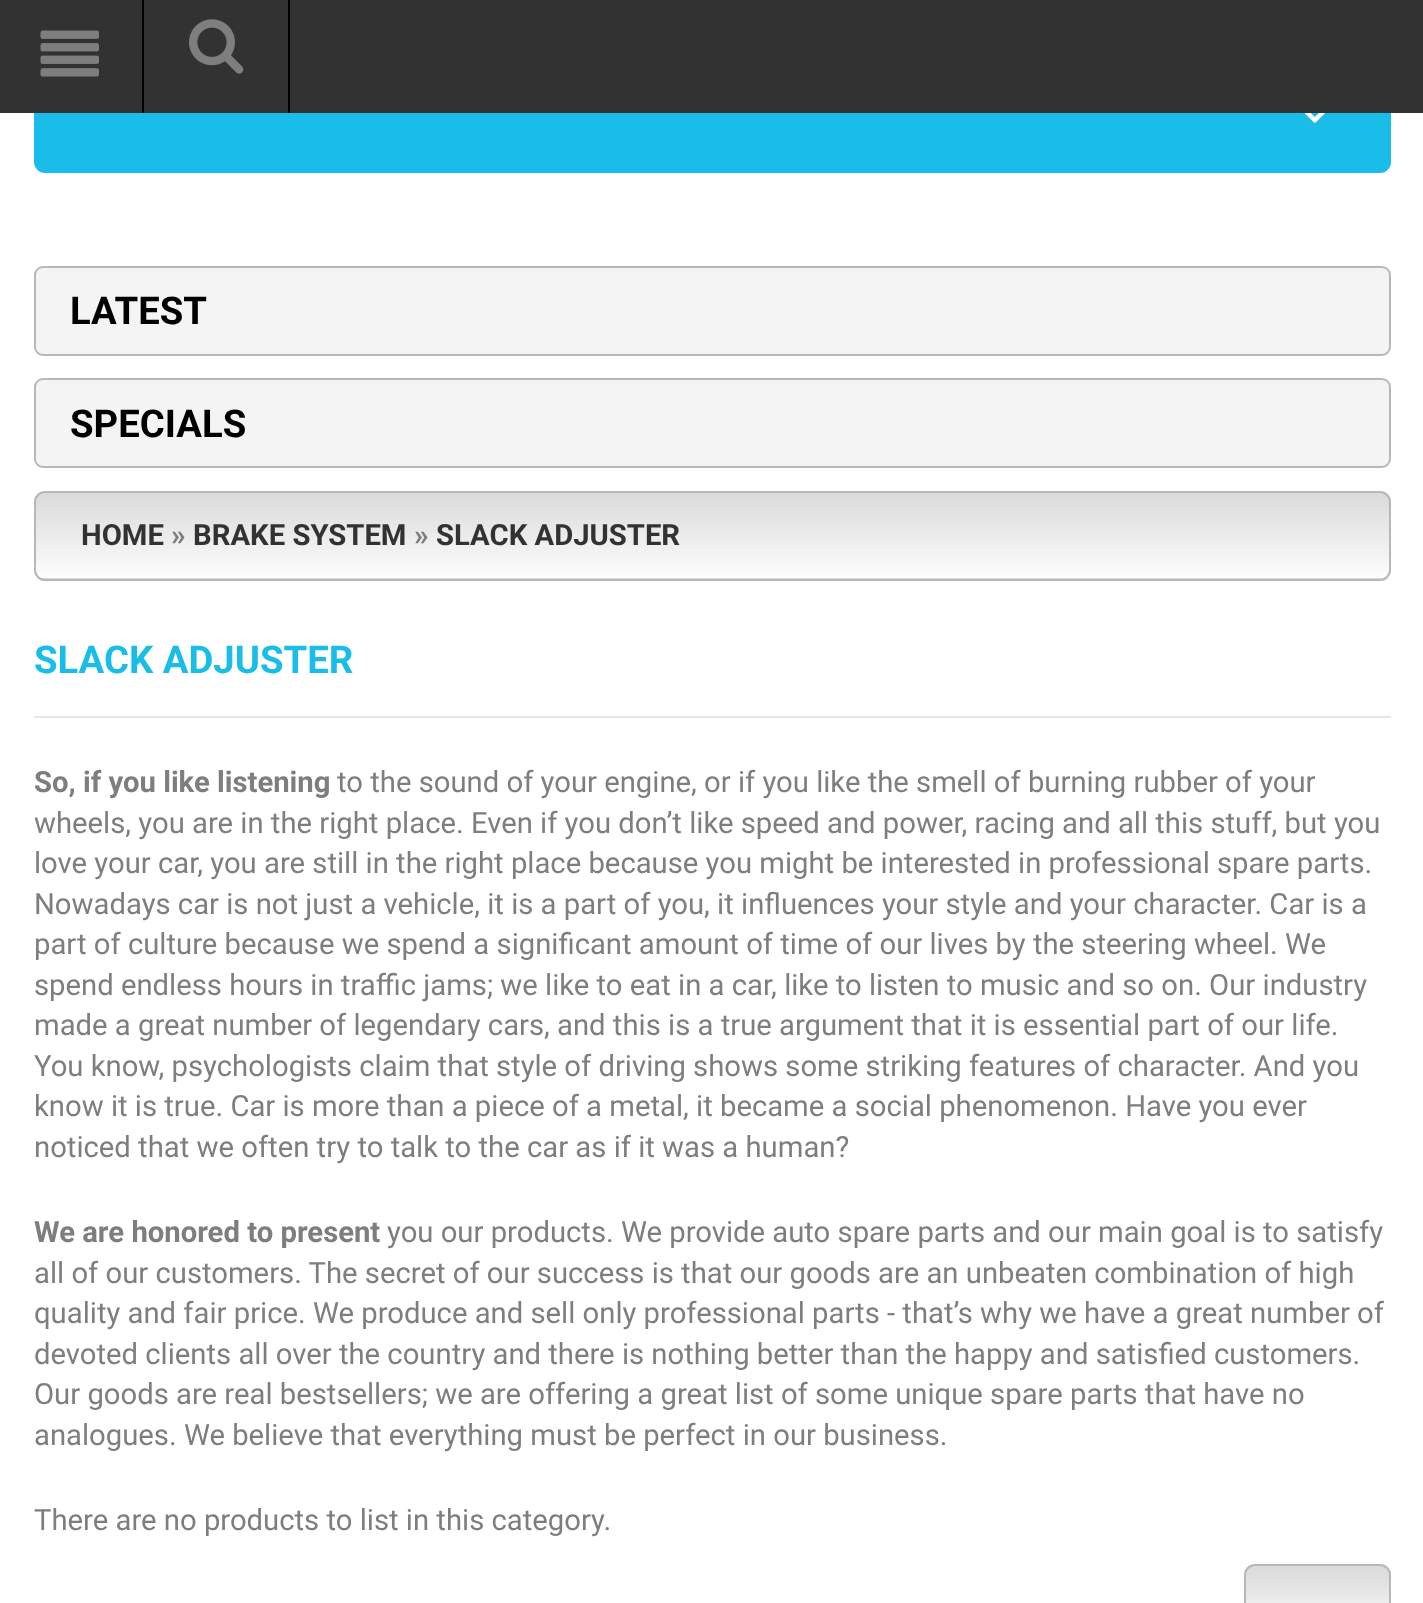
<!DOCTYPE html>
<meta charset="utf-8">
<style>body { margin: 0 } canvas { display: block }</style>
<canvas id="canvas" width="1423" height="1603"></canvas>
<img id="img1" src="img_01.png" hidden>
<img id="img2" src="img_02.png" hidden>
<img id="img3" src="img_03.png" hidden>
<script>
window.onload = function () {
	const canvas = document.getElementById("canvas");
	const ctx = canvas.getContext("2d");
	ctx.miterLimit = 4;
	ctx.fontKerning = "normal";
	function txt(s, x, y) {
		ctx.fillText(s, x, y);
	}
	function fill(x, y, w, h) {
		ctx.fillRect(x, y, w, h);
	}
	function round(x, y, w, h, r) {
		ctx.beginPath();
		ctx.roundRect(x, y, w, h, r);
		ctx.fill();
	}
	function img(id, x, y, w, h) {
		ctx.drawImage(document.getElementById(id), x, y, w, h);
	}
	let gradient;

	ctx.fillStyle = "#FFFFFF";
	fill(0, 0, 1423, 1603);
	ctx.fillStyle = "#19BDE8";
	round(34, 61, 1357, 112, 11);
	ctx.fillStyle = "#323232";
	fill(0, 0, 1423, 113);
	ctx.fillStyle = "#000000";
	fill(142, 0, 2, 113);
	img("img1", 40, 30, 59, 47);
	fill(288, 0, 2, 113);
	img("img2", 189, 19, 55, 55);
	img("img3", 1304, 113, 21, 10);
	ctx.fillStyle = "#F4F4F4";
	ctx.beginPath();
	ctx.roundRect(35, 267, 1355, 88, 8);
	ctx.fill();
	ctx.strokeStyle = "#B8B8B8";
	ctx.lineWidth = 2;
	ctx.stroke();
	ctx.beginPath();
	ctx.roundRect(35, 379, 1355, 88, 8);
	ctx.fill();
	ctx.stroke();
	ctx.save();
	ctx.beginPath();
	ctx.roundRect(34, 491, 1357, 90, 11);
	ctx.clip();
	gradient = ctx.createLinearGradient(712, 493, 712, 578);
	gradient.addColorStop(0, "#DADADA");
	gradient.addColorStop(1, "#FDFDFD");
	ctx.fillStyle = gradient;
	fill(34, 493, 1357, 85);
	gradient = ctx.createLinearGradient(712, 578, 712, 664);
	gradient.addColorStop(0, "#DADADA");
	gradient.addColorStop(1, "#FDFDFD");
	ctx.fillStyle = gradient;
	fill(34, 578, 1357, 3);
	ctx.restore();
	ctx.beginPath();
	ctx.roundRect(35, 492, 1355, 88, 10);
	ctx.stroke();
	ctx.fillStyle = "#E6E6E6";
	fill(34, 716, 1357, 2);
	ctx.save();
	ctx.beginPath();
	ctx.roundRect(1244, 1564, 147, 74, 11);
	ctx.clip();
	gradient = ctx.createLinearGradient(1317, 1566, 1317, 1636);
	gradient.addColorStop(0, "#DBDBDB");
	gradient.addColorStop(0.27, "#E2E2E2");
	gradient.addColorStop(0.77, "#F7F7F7");
	gradient.addColorStop(1, "#FEFEFE");
	ctx.fillStyle = gradient;
	fill(1244, 1566, 147, 37);
	ctx.restore();
	ctx.beginPath();
	ctx.roundRect(1245, 1565, 145, 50, 10);
	ctx.stroke();
	ctx.font = "bold 38.25px Roboto";
	ctx.fillStyle = "#000000";
	txt("LATEST", 70, 324);
	txt("SPECIALS", 70, 437);
	ctx.font = "bold 29.25px Roboto";
	ctx.fillStyle = "#323232";
	txt("HOME", 81, 545);
	ctx.fillStyle = "#7E7E7E";
	txt("»", 171, 545);
	ctx.fillStyle = "#323232";
	txt("BRAKE SYSTEM", 193, 545);
	ctx.fillStyle = "#7E7E7E";
	txt("»", 414, 545);
	ctx.fillStyle = "#323232";
	txt("SLACK ADJUSTER", 436, 545);
	ctx.font = "bold 38.25px Roboto";
	ctx.fillStyle = "#19BDE8";
	txt("SLACK ADJUSTER", 34, 673);
	ctx.font = "bold 29.25px Roboto";
	ctx.fillStyle = "#7E7E7E";
	txt("So, if you like listening", 34, 792);
	ctx.font = "29.25px Roboto";
	txt("to the sound of your engine, or if you like the smell of burning rubber of your", 337, 792);
	txt("wheels, you are in the right place. Even if you don’t like speed and power, racing and all this stuff, but you", 34, 833);
	txt("love your car, you are still in the right place because you might be interested in professional spare parts.", 34, 873);
	txt("Nowadays car is not just a vehicle, it is a part of you, it influences your style and your character. Car is a", 34, 914);
	txt("part of culture because we spend a significant amount of time of our lives by the steering wheel. We", 34, 954);
	txt("spend endless hours in traffic jams; we like to eat in a car, like to listen to music and so on. Our industry", 34, 995);
	txt("made a great number of legendary cars, and this is a true argument that it is essential part of our life.", 34, 1035);
	txt("You know, psychologists claim that style of driving shows some striking features of character. And you", 34, 1076);
	txt("know it is true. Car is more than a piece of a metal, it became a social phenomenon. Have you ever", 34, 1116);
	txt("noticed that we often try to talk to the car as if it was a human?", 34, 1157);
	ctx.font = "bold 29.25px Roboto";
	txt("We are honored to present", 34, 1242);
	ctx.font = "29.25px Roboto";
	txt("you our products. We provide auto spare parts and our main goal is to satisfy", 387, 1242);
	txt("all of our customers. The secret of our success is that our goods are an unbeaten combination of high", 34, 1283);
	txt("quality and fair price. We produce and sell only professional parts - that’s why we have a great number of", 34, 1323);
	txt("devoted clients all over the country and there is nothing better than the happy and satisfied customers.", 34, 1364);
	txt("Our goods are real bestsellers; we are offering a great list of some unique spare parts that have no", 34, 1404);
	txt("analogues. We believe that everything must be perfect in our business.", 34, 1445);
	txt("There are no products to list in this category.", 34, 1530);
};
</script>
